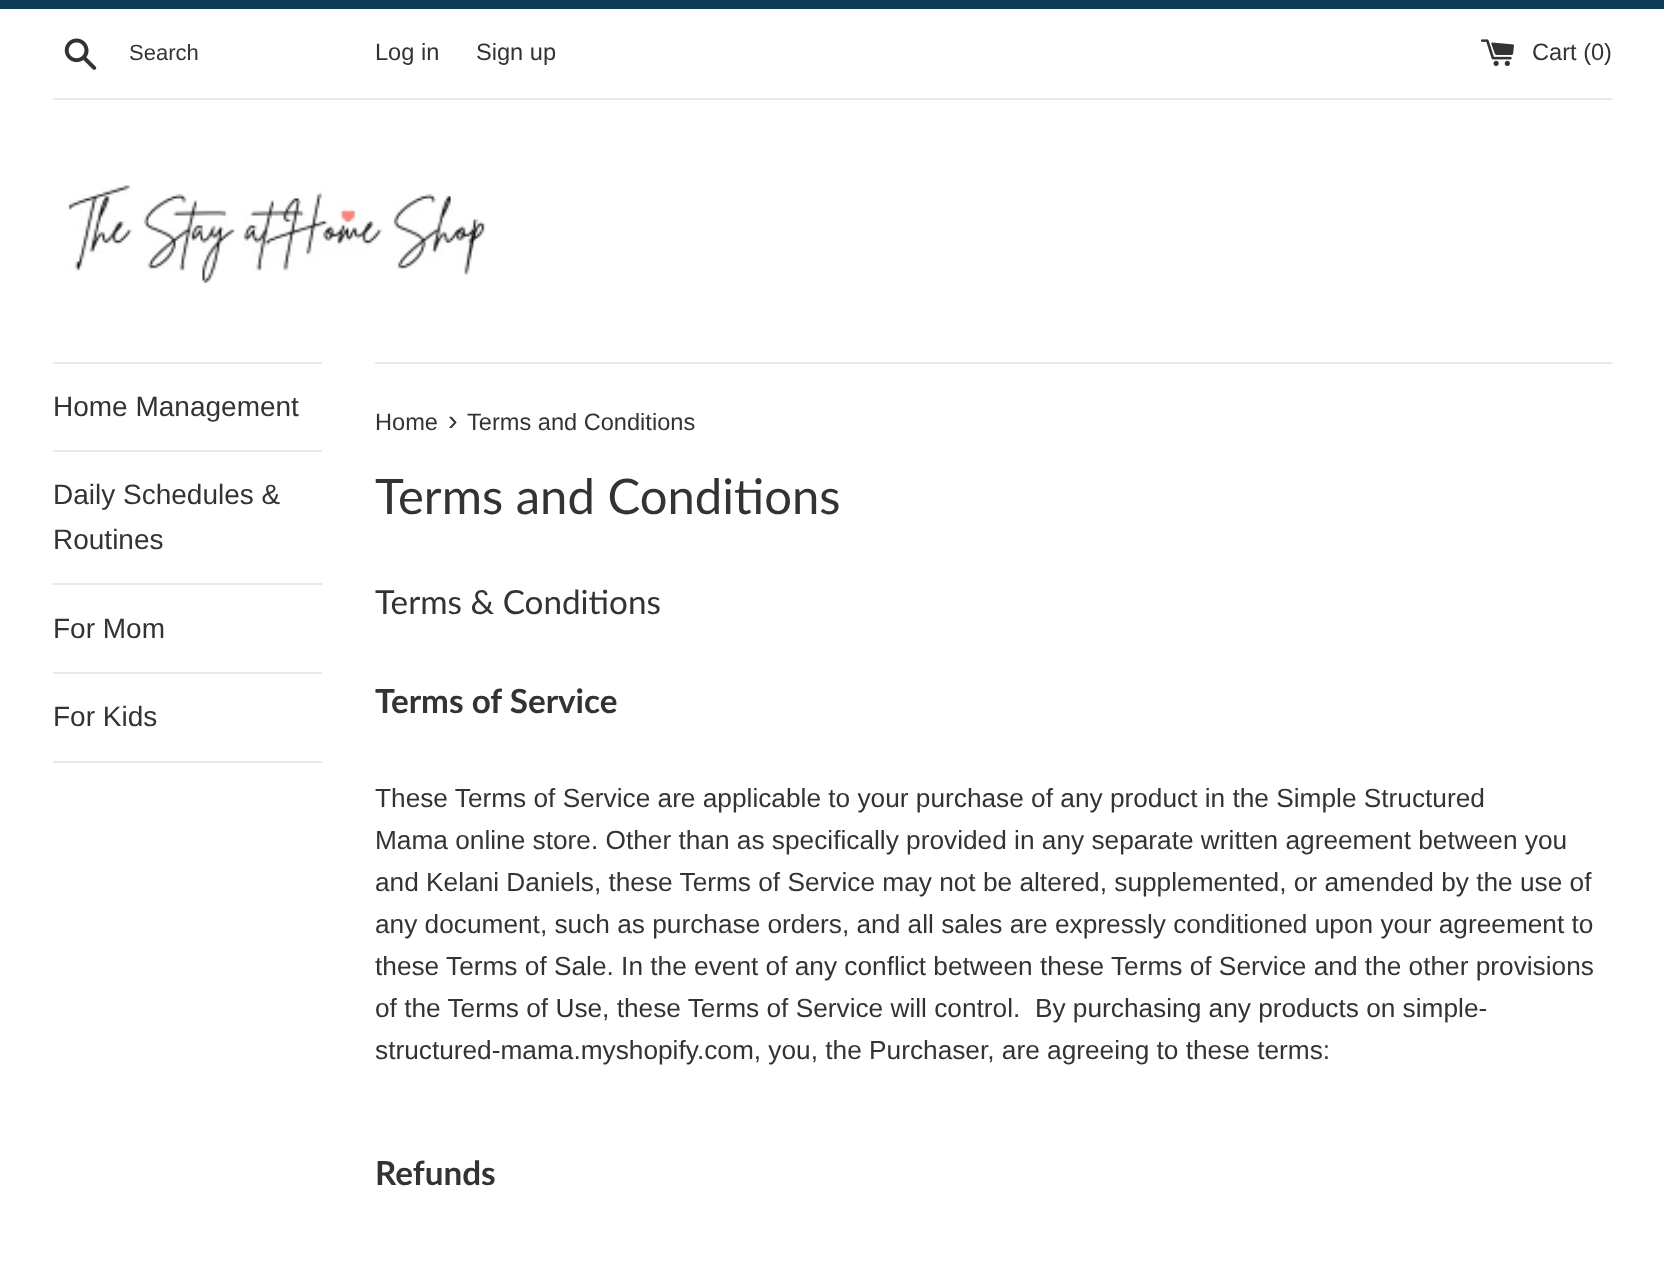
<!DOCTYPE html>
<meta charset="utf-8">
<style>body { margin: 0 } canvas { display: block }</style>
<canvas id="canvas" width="1664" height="1261"></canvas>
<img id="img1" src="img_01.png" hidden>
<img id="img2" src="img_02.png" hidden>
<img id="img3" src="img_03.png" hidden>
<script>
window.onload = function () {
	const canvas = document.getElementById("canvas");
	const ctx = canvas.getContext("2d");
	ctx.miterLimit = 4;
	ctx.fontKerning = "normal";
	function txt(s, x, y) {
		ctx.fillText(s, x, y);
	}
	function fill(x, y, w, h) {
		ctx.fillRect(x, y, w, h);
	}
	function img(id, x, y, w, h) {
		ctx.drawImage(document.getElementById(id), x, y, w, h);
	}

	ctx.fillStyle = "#FFFFFF";
	fill(0, 0, 1664, 1261);
	ctx.fillStyle = "#0C3F57";
	fill(0, 0, 1664, 9);
	img("img1", 64, 38, 33, 32);
	img("img2", 1481, 39, 33, 27);
	ctx.fillStyle = "#E8E8E8";
	fill(53, 98, 1559, 2);
	img("img3", 68, 185, 417, 99);
	fill(53, 362, 269, 2);
	fill(53, 450, 269, 2);
	fill(53, 583, 269, 2);
	fill(53, 672, 269, 2);
	fill(53, 761, 269, 2);
	fill(375, 362, 1237, 2);
	ctx.font = "22px Liberation Sans";
	ctx.fillStyle = "#333333";
	txt("Search", 129, 60);
	ctx.font = "23.6px Liberation Sans";
	txt("Log in", 375, 60);
	txt("Sign up", 476, 60);
	txt("Cart (0)", 1532, 60);
	ctx.font = "28px Liberation Sans";
	txt("Home Management", 53, 416);
	txt("Daily Schedules &", 53, 504);
	txt("Routines", 53, 549);
	txt("For Mom", 53, 638);
	txt("For Kids", 53, 726);
	ctx.font = "23.6px Liberation Sans";
	txt("Home", 375, 430);
	ctx.font = "29px Liberation Sans";
	txt("›", 448, 430);
	ctx.font = "23.6px Liberation Sans";
	txt("Terms and Conditions", 467, 430);
	ctx.font = "49px Lato";
	txt("Terms and Conditions", 375, 514);
	ctx.font = "33.25px Lato";
	txt("Terms & Conditions", 375, 614);
	ctx.font = "bold 33.25px Lato";
	txt("Terms of Service", 375, 713);
	ctx.font = "26.25px Liberation Sans";
	txt("These Terms of Service are applicable to your purchase of any product in the Simple Structured", 375, 807);
	txt("Mama online store. Other than as specifically provided in any separate written agreement between you", 375, 849);
	txt("and Kelani Daniels, these Terms of Service may not be altered, supplemented, or amended by the use of", 375, 891);
	txt("any document, such as purchase orders, and all sales are expressly conditioned upon your agreement to", 375, 933);
	txt("these Terms of Sale. In the event of any conflict between these Terms of Service and the other provisions", 375, 975);
	txt("of the Terms of Use, these Terms of Service will control.  By purchasing any products on simple-", 375, 1017);
	txt("structured-mama.myshopify.com, you, the Purchaser, are agreeing to these terms:", 375, 1059);
	ctx.font = "bold 33.25px Lato";
	txt("Refunds", 375, 1185);
};
</script>
